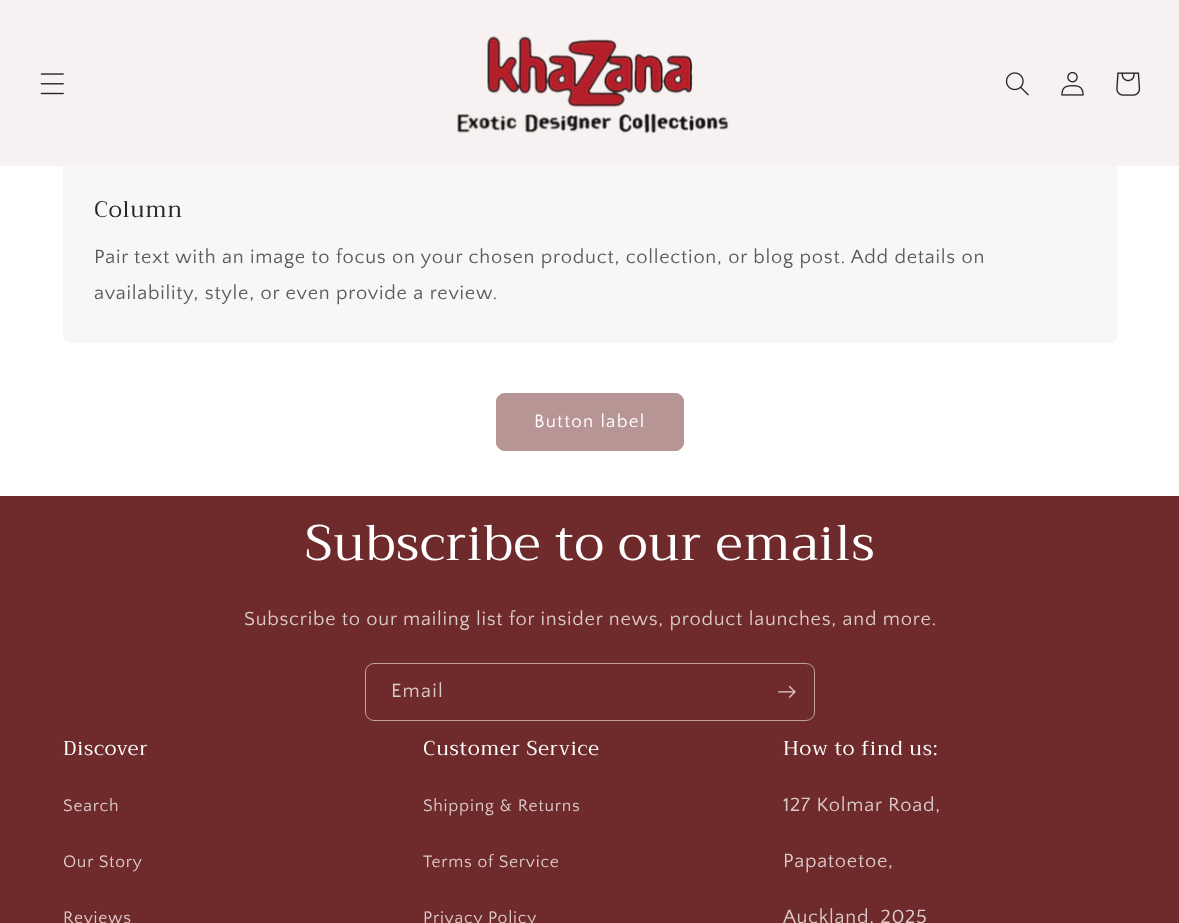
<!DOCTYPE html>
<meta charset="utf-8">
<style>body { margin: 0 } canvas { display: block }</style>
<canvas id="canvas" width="1179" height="923"></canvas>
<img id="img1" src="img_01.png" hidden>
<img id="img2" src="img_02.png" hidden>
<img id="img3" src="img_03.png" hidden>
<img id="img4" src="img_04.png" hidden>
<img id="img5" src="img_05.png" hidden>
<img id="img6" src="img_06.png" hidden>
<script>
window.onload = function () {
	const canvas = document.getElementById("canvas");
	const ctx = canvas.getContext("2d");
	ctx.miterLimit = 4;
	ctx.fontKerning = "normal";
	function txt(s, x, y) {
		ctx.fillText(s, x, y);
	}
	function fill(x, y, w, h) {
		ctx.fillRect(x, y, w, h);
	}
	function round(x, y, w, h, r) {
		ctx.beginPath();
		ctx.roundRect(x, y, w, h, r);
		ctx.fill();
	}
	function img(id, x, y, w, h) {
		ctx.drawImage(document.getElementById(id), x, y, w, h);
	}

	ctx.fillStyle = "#FFFFFF";
	fill(0, 0, 1179, 923);
	ctx.fillStyle = "#F7F7F7";
	round(63, 161, 1055, 182, 8);
	ctx.fillStyle = "#F8F1F1";
	fill(0, 0, 1179, 166);
	img("img1", 40, 73, 24, 22);
	img("img2", 457, 36, 272, 98);
	img("img3", 1005, 72, 24, 24);
	img("img4", 1061, 71, 23, 25);
	img("img5", 1116, 72, 25, 24);
	ctx.fillStyle = "#B79595";
	round(496, 393, 188, 58, 9);
	ctx.beginPath();
	ctx.roundRect(496.5, 393.5, 187, 57, 8.5);
	ctx.strokeStyle = "#B79595";
	ctx.stroke();
	ctx.fillStyle = "#6F2B2B";
	fill(0, 496, 1179, 427);
	ctx.beginPath();
	ctx.roundRect(365.5, 663.5, 449, 57, 8.5);
	ctx.strokeStyle = "#BEA0A0";
	ctx.stroke();
	img("img6", 778, 685, 18, 13);
	ctx.letterSpacing = "0.75px";
	ctx.font = "22.5px Trirong";
	ctx.fillStyle = "#252525";
	txt("Column", 94, 217);
	ctx.font = "20px Quattrocento Sans";
	ctx.fillStyle = "#5A5A5A";
	txt("Pair text with an image to focus on your chosen product, collection, or blog post. Add details on", 94, 263);
	txt("availability, style, or even provide a review.", 94, 299);
	ctx.letterSpacing = "1.25px";
	ctx.font = "18.75px Quattrocento Sans";
	ctx.fillStyle = "#FFFFFF";
	txt("Button label", 534, 427);
	ctx.letterSpacing = "0.75px";
	ctx.font = "50px Trirong";
	txt("Subscribe to our emails", 305, 560);
	ctx.font = "20px Quattrocento Sans";
	ctx.fillStyle = "#DBCACA";
	txt("Subscribe to our mailing list for insider news, product launches, and more.", 244, 625);
	ctx.letterSpacing = "1.25px";
	txt("Email", 391, 697);
	ctx.letterSpacing = "0.75px";
	ctx.font = "20px Trirong";
	ctx.fillStyle = "#FFFFFF";
	txt("Discover", 63, 755);
	ctx.font = "17.5px Quattrocento Sans";
	ctx.fillStyle = "#DBCACA";
	txt("Search", 63, 811);
	txt("Our Story", 63, 867);
	txt("Reviews", 63, 923);
	ctx.font = "20px Trirong";
	ctx.fillStyle = "#FFFFFF";
	txt("Customer Service", 423, 755);
	ctx.font = "17.5px Quattrocento Sans";
	ctx.fillStyle = "#DBCACA";
	txt("Shipping & Returns", 423, 811);
	txt("Terms of Service", 423, 867);
	txt("Privacy Policy", 423, 923);
	ctx.font = "20px Trirong";
	ctx.fillStyle = "#FFFFFF";
	txt("How to find us:", 783, 755);
	ctx.font = "20px Quattrocento Sans";
	ctx.fillStyle = "#DBCACA";
	txt("127 Kolmar Road,", 783, 811);
	txt("Papatoetoe,", 783, 867);
	txt("Auckland, 2025", 783, 923);
};
</script>
